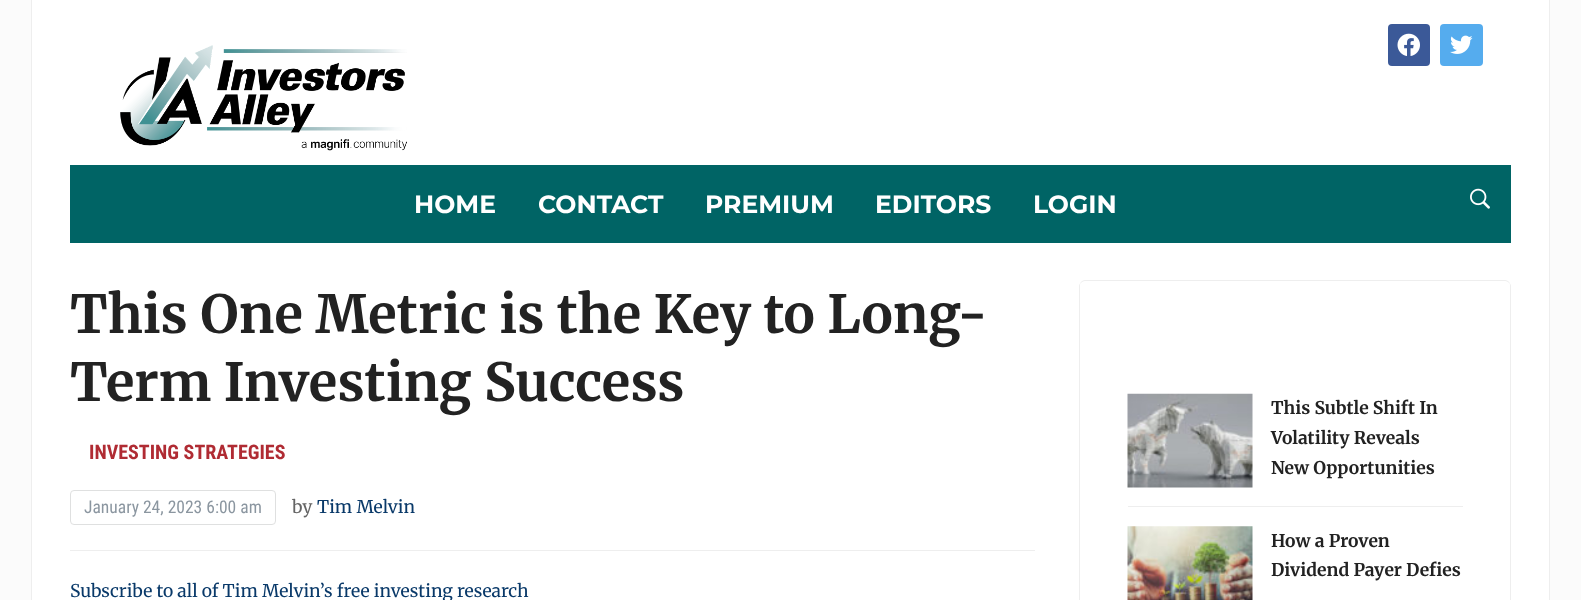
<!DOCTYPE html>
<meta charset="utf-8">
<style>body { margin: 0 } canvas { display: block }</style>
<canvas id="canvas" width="1581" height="600"></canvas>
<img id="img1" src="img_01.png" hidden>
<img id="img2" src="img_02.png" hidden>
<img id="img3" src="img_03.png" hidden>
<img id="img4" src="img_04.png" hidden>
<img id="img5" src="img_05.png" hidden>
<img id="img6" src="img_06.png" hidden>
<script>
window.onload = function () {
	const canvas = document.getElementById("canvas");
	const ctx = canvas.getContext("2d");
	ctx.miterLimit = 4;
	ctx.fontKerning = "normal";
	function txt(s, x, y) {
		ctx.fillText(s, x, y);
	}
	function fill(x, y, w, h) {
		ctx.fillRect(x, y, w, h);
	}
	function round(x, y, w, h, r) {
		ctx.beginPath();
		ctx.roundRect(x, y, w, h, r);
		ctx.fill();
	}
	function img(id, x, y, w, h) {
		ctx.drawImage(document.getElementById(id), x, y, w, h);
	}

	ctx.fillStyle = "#FBFBFB";
	fill(0, 0, 1581, 600);
	ctx.fillStyle = "#FFFFFF";
	fill(32, 0, 1517, 600);
	ctx.fillStyle = "#EEEEEE";
	fill(1549, 0, 1, 600);
	fill(31, 0, 1, 600);
	img("img1", 120, 45, 287, 106);
	ctx.fillStyle = "#3B5998";
	round(1388, 24, 42, 42, 4);
	img("img2", 1397, 33, 23, 23);
	ctx.fillStyle = "#55ACEE";
	round(1440, 24, 43, 42, 4);
	img("img3", 1450, 35, 23, 19);
	ctx.fillStyle = "#006465";
	fill(70, 165, 1441, 78);
	img("img4", 1470, 188, 20, 21);
	ctx.fillStyle = "#EEEEEE";
	fill(70, 550, 965, 1);
	ctx.beginPath();
	ctx.roundRect(70.5, 490.5, 205, 34, 3.5);
	ctx.strokeStyle = "#DFE0E0";
	ctx.stroke();
	ctx.beginPath();
	ctx.moveTo(1085, 280);
	ctx.bezierCurveTo(1083, 280, 1082, 281, 1081, 282);
	ctx.lineTo(1081, 283);
	ctx.bezierCurveTo(1082, 282, 1083, 281, 1085, 281);
	ctx.lineTo(1505, 281);
	ctx.bezierCurveTo(1507, 281, 1508, 282, 1509, 283);
	ctx.lineTo(1509, 282);
	ctx.bezierCurveTo(1508, 281, 1507, 280, 1505, 280);
	ctx.closePath();
	ctx.fill();
	ctx.beginPath();
	ctx.moveTo(1509, 282);
	ctx.bezierCurveTo(1510, 283, 1511, 285, 1511, 286);
	ctx.lineTo(1511, 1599);
	ctx.lineTo(1510, 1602);
	ctx.lineTo(1510, 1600);
	ctx.lineTo(1510, 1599);
	ctx.lineTo(1510, 286);
	ctx.bezierCurveTo(1510, 285, 1510, 283, 1509, 283);
	ctx.closePath();
	ctx.fill();
	ctx.beginPath();
	ctx.moveTo(1081, 282);
	ctx.bezierCurveTo(1080, 283, 1079, 285, 1079, 286);
	ctx.lineTo(1079, 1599);
	ctx.lineTo(1080, 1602);
	ctx.lineTo(1080, 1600);
	ctx.lineTo(1080, 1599);
	ctx.lineTo(1080, 286);
	ctx.bezierCurveTo(1080, 285, 1080, 283, 1081, 283);
	ctx.closePath();
	ctx.fill();
	fill(1128, 506, 335, 1);
	img("img5", 1127, 393, 126, 95);
	img("img6", 1127, 526, 126, 74);
	ctx.font = "bold 25px Montserrat";
	ctx.fillStyle = "#FFFFFF";
	txt("HOME", 414, 213);
	txt("CONTACT", 538, 213);
	txt("PREMIUM", 705, 213);
	txt("EDITORS", 875, 213);
	txt("LOGIN", 1033, 213);
	ctx.font = "bold 52.5px Merriweather";
	ctx.fillStyle = "#222222";
	txt("This One Metric is the Key to Long-", 70, 333);
	txt("Term Investing Success", 70, 401);
	ctx.font = "bold 20px Roboto Condensed";
	ctx.fillStyle = "#B02B33";
	txt("INVESTING STRATEGIES", 89, 459);
	ctx.font = "17.5px Roboto Condensed";
	ctx.fillStyle = "#8B96A0";
	txt("January 24, 2023 6:00 am", 84, 513);
	ctx.font = "17.5px Merriweather";
	ctx.fillStyle = "#656565";
	txt("by", 292, 513);
	ctx.fillStyle = "#093969";
	txt("Tim Melvin", 317, 513);
	txt("Subscribe to all of Tim Melvin’s free investing research", 70, 597);
	ctx.font = "bold 17.5px Merriweather";
	ctx.fillStyle = "#222222";
	txt("This Subtle Shift In", 1271, 414);
	txt("Volatility Reveals", 1271, 444);
	txt("New Opportunities", 1271, 474);
	txt("How a Proven", 1271, 547);
	txt("Dividend Payer Defies", 1271, 576);
};
</script>
